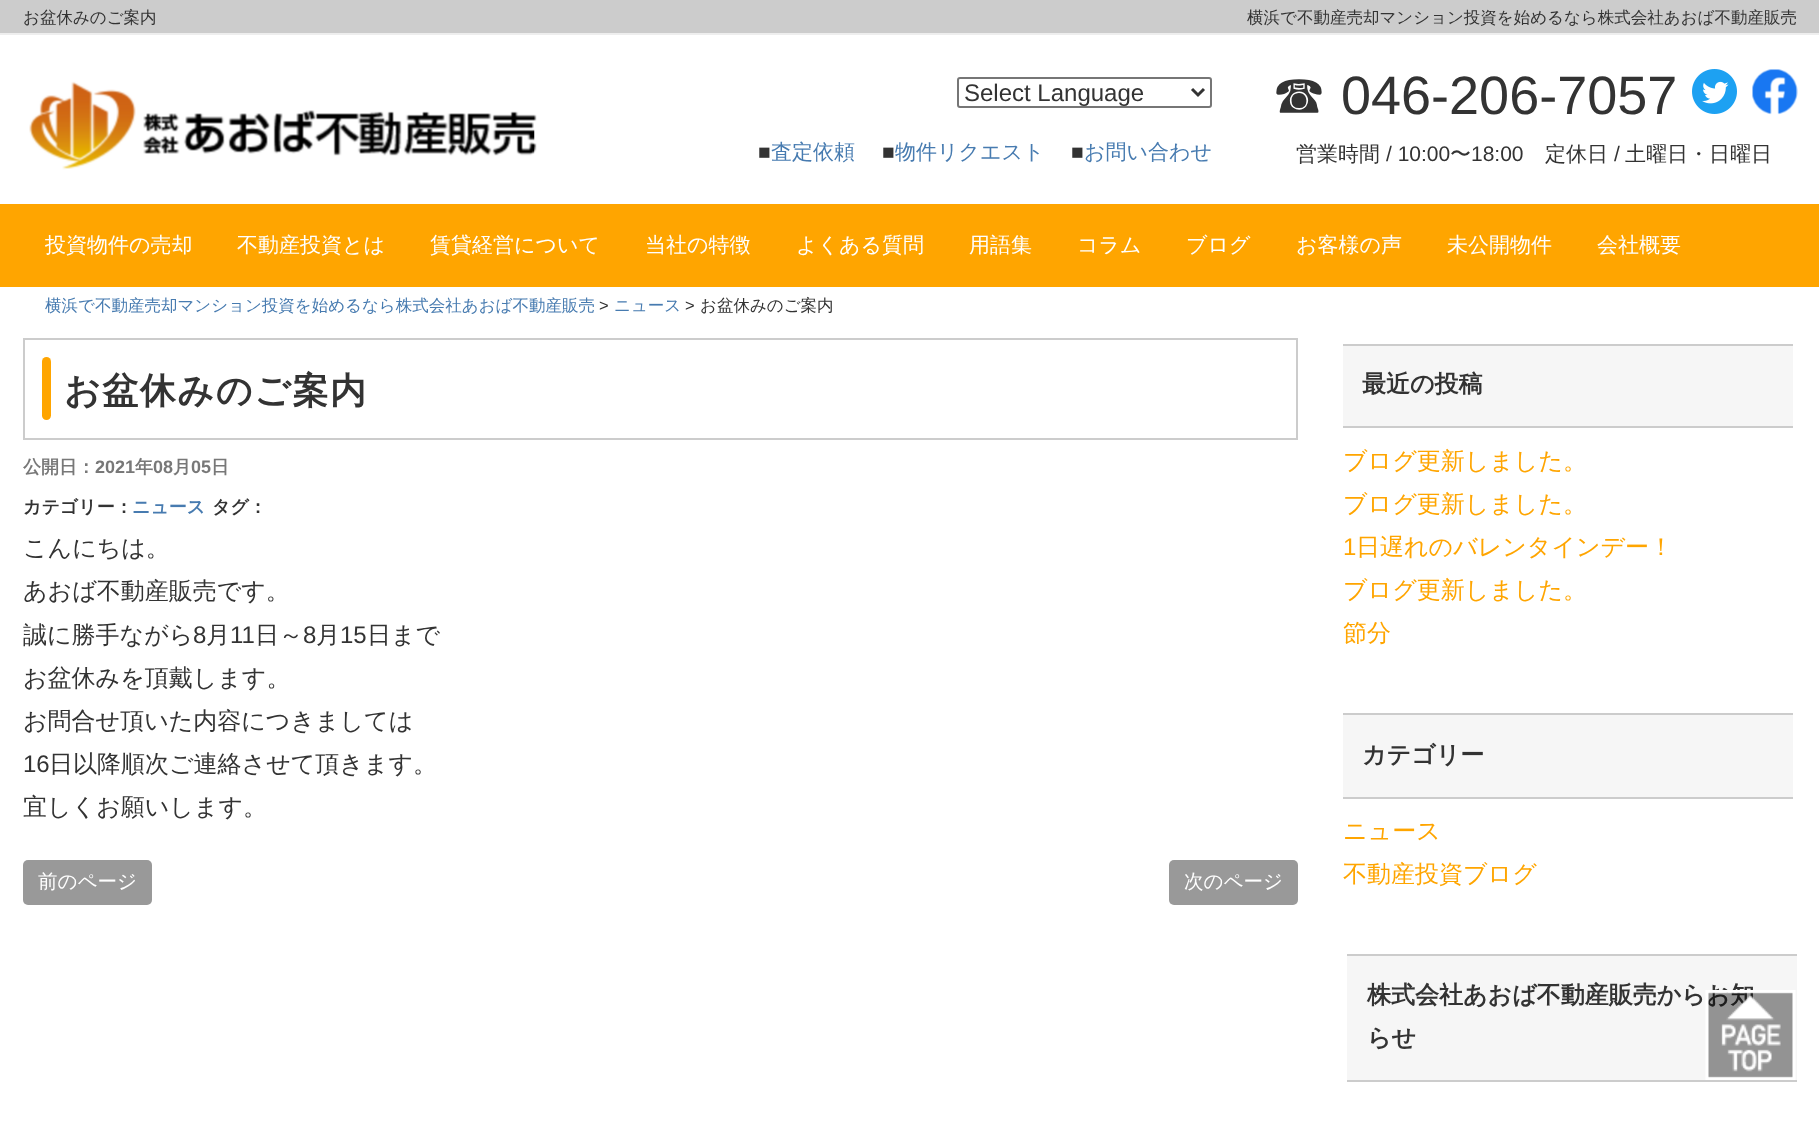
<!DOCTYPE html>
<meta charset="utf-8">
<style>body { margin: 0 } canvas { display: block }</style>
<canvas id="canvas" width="1819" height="1125"></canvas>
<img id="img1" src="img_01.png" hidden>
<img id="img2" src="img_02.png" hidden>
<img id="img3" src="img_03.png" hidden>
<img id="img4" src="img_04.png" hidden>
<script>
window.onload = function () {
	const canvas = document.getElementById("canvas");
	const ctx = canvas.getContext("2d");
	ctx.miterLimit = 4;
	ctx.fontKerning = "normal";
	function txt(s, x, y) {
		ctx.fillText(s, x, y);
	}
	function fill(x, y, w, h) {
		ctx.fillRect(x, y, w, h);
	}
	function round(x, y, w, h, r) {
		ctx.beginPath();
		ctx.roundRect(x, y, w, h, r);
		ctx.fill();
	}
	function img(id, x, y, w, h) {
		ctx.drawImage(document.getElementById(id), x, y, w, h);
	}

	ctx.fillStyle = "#FFFFFF";
	fill(0, 0, 1819, 1125);
	ctx.fillStyle = "#CCCCCC";
	fill(0, 0, 1819, 33);
	ctx.fillStyle = "#EEEEEE";
	fill(0, 33, 1819, 2);
	img("img1", 29, 81, 508, 89);
	ctx.beginPath();
	ctx.roundRect(958, 78, 253, 29, 2);
	ctx.strokeStyle = "#767676";
	ctx.lineWidth = 2;
	ctx.stroke();
	ctx.beginPath();
	ctx.moveTo(1192, 89);
	ctx.lineTo(1198, 95);
	ctx.lineTo(1204, 89);
	ctx.strokeStyle = "#333333";
	ctx.lineWidth = 3;
	ctx.stroke();
	img("img2", 1692, 69, 45, 45);
	img("img3", 1752, 69, 46, 46);
	ctx.fillStyle = "#FFA500";
	fill(0, 204, 1819, 83);
	ctx.strokeStyle = "#CCCCCC";
	ctx.lineWidth = 2;
	ctx.strokeRect(24, 339, 1273, 100);
	round(42, 357, 9, 63, 4.5);
	ctx.fillStyle = "#999999";
	round(23, 860, 129, 45, 5);
	round(1169, 860, 129, 45, 5);
	ctx.fillStyle = "#F6F6F6";
	fill(1343, 346, 450, 80);
	ctx.fillStyle = "#CCCCCC";
	fill(1343, 344, 450, 2);
	fill(1343, 426, 450, 2);
	ctx.fillStyle = "#F6F6F6";
	fill(1343, 715, 450, 82);
	ctx.fillStyle = "#CCCCCC";
	fill(1343, 713, 450, 2);
	fill(1343, 797, 450, 2);
	ctx.fillStyle = "#F6F6F6";
	fill(1347, 956, 450, 124);
	ctx.fillStyle = "#CCCCCC";
	fill(1347, 954, 450, 2);
	fill(1347, 1080, 450, 2);
	ctx.font = "500 16.5px WenQuanYi Zen Hei";
	ctx.fillStyle = "#333333";
	txt("お盆休みのご案内", 23, 23);
	txt("横浜で不動産売却マンション投資を始めるなら株式会社あおば不動産販売", 1247, 23);
	ctx.font = "24px Liberation Sans";
	txt("Select Language", 964, 101);
	ctx.font = "21px Liberation Sans";
	txt("■", 758, 159);
	ctx.font = "500 21px WenQuanYi Zen Hei";
	ctx.fillStyle = "#477BB0";
	txt("査定依頼", 771, 159);
	ctx.font = "21px Liberation Sans";
	ctx.fillStyle = "#333333";
	txt("■", 882, 159);
	ctx.font = "500 21px WenQuanYi Zen Hei";
	ctx.fillStyle = "#477BB0";
	txt("物件リクエスト", 895, 159);
	ctx.font = "21px Liberation Sans";
	ctx.fillStyle = "#333333";
	txt("■", 1071, 159);
	ctx.font = "500 21px WenQuanYi Zen Hei";
	ctx.fillStyle = "#477BB0";
	txt("お問い合わせ", 1084, 159);
	ctx.font = "500 54px WenQuanYi Zen Hei";
	ctx.fillStyle = "#333333";
	txt("☎︎", 1272, 114);
	ctx.font = "54px Liberation Sans";
	txt("046-206-7057", 1341, 114);
	ctx.font = "500 21px WenQuanYi Zen Hei";
	txt("営業時間", 1296, 161);
	ctx.font = "21px Liberation Sans";
	txt("/ 10:00", 1386, 161);
	ctx.font = "500 21px WenQuanYi Zen Hei";
	txt("〜", 1450, 161);
	ctx.font = "21px Liberation Sans";
	txt("18:00", 1471, 161);
	ctx.font = "500 21px WenQuanYi Zen Hei";
	txt("定休日", 1545, 161);
	ctx.font = "21px Liberation Sans";
	txt("/", 1614, 161);
	ctx.font = "500 21px WenQuanYi Zen Hei";
	txt("土曜日・日曜日", 1625, 161);
	ctx.fillStyle = "#FFFFFF";
	txt("投資物件の売却", 45, 252);
	txt("不動産投資とは", 237, 252);
	txt("賃貸経営について", 430, 252);
	txt("当社の特徴", 645, 252);
	txt("よくある質問", 796, 252);
	txt("用語集", 969, 252);
	txt("コラム", 1077, 252);
	txt("ブログ", 1186, 252);
	txt("お客様の声", 1296, 252);
	txt("未公開物件", 1447, 252);
	txt("会社概要", 1597, 252);
	ctx.font = "500 16.5px WenQuanYi Zen Hei";
	ctx.fillStyle = "#477BB0";
	txt("横浜で不動産売却マンション投資を始めるなら株式会社あおば不動産販売", 45, 311);
	ctx.font = "16.5px Liberation Sans";
	ctx.fillStyle = "#333333";
	txt(">", 599, 311);
	ctx.font = "500 16.5px WenQuanYi Zen Hei";
	ctx.fillStyle = "#477BB0";
	txt("ニュース", 614, 311);
	ctx.font = "16.5px Liberation Sans";
	ctx.fillStyle = "#333333";
	txt(">", 685, 311);
	ctx.font = "500 16.5px WenQuanYi Zen Hei";
	txt("お盆休みのご案内", 700, 311);
	ctx.letterSpacing = "1.5px";
	ctx.font = "bold 36px WenQuanYi Zen Hei";
	txt("お盆休みのご案内", 64, 403);
	ctx.letterSpacing = "0px";
	ctx.font = "bold 18px WenQuanYi Zen Hei";
	ctx.fillStyle = "#787878";
	txt("公開日：", 23, 473);
	ctx.font = "bold 18px Liberation Sans";
	txt("2021", 95, 473);
	ctx.font = "bold 18px WenQuanYi Zen Hei";
	txt("年", 135, 473);
	ctx.font = "bold 18px Liberation Sans";
	txt("08", 153, 473);
	ctx.font = "bold 18px WenQuanYi Zen Hei";
	txt("月", 173, 473);
	ctx.font = "bold 18px Liberation Sans";
	txt("05", 191, 473);
	ctx.font = "bold 18px WenQuanYi Zen Hei";
	txt("日", 211, 473);
	ctx.fillStyle = "#333333";
	txt("カテゴリー：", 23, 513);
	ctx.fillStyle = "#477BB0";
	txt("ニュース", 132, 513);
	ctx.fillStyle = "#333333";
	txt("タグ：", 212, 513);
	ctx.font = "500 24px WenQuanYi Zen Hei";
	txt("こんにちは。", 23, 556);
	txt("あおば不動産販売です。", 23, 599);
	txt("誠に勝手ながら", 23, 643);
	ctx.font = "24px Liberation Sans";
	txt("8", 193, 643);
	ctx.font = "500 24px WenQuanYi Zen Hei";
	txt("月", 206, 643);
	ctx.font = "24px Liberation Sans";
	txt("11", 230, 643);
	ctx.font = "500 24px WenQuanYi Zen Hei";
	txt("日～", 255, 643);
	ctx.font = "24px Liberation Sans";
	txt("8", 303, 643);
	ctx.font = "500 24px WenQuanYi Zen Hei";
	txt("月", 316, 643);
	ctx.font = "24px Liberation Sans";
	txt("15", 340, 643);
	ctx.font = "500 24px WenQuanYi Zen Hei";
	txt("日まで", 367, 643);
	txt("お盆休みを頂戴します。", 23, 686);
	txt("お問合せ頂いた内容につきましては", 23, 729);
	ctx.font = "24px Liberation Sans";
	txt("16", 23, 772);
	ctx.font = "500 24px WenQuanYi Zen Hei";
	txt("日以降順次ご連絡させて頂きます。", 49, 772);
	txt("宜しくお願いします。", 23, 815);
	ctx.font = "500 19.5px WenQuanYi Zen Hei";
	ctx.fillStyle = "#FFFFFF";
	txt("前のページ", 38, 888);
	txt("次のページ", 1184, 888);
	ctx.font = "bold 24px WenQuanYi Zen Hei";
	ctx.fillStyle = "#333333";
	txt("最近の投稿", 1362, 392);
	ctx.font = "500 24px WenQuanYi Zen Hei";
	ctx.fillStyle = "#FFA500";
	txt("ブログ更新しました。", 1343, 469);
	txt("ブログ更新しました。", 1343, 512);
	ctx.font = "24px Liberation Sans";
	txt("1", 1343, 555);
	ctx.font = "500 24px WenQuanYi Zen Hei";
	txt("日遅れのバレンタインデー！", 1356, 555);
	txt("ブログ更新しました。", 1343, 598);
	txt("節分", 1343, 641);
	ctx.font = "bold 24px WenQuanYi Zen Hei";
	ctx.fillStyle = "#333333";
	txt("カテゴリー", 1362, 763);
	ctx.font = "500 24px WenQuanYi Zen Hei";
	ctx.fillStyle = "#FFA500";
	txt("ニュース", 1343, 839);
	txt("不動産投資ブログ", 1343, 882);
	ctx.font = "bold 24px WenQuanYi Zen Hei";
	ctx.fillStyle = "#333333";
	txt("株式会社あおば不動産販売からお知", 1367, 1003);
	txt("らせ", 1367, 1046);
	img("img4", 1705, 990, 91, 90);
};
</script>
